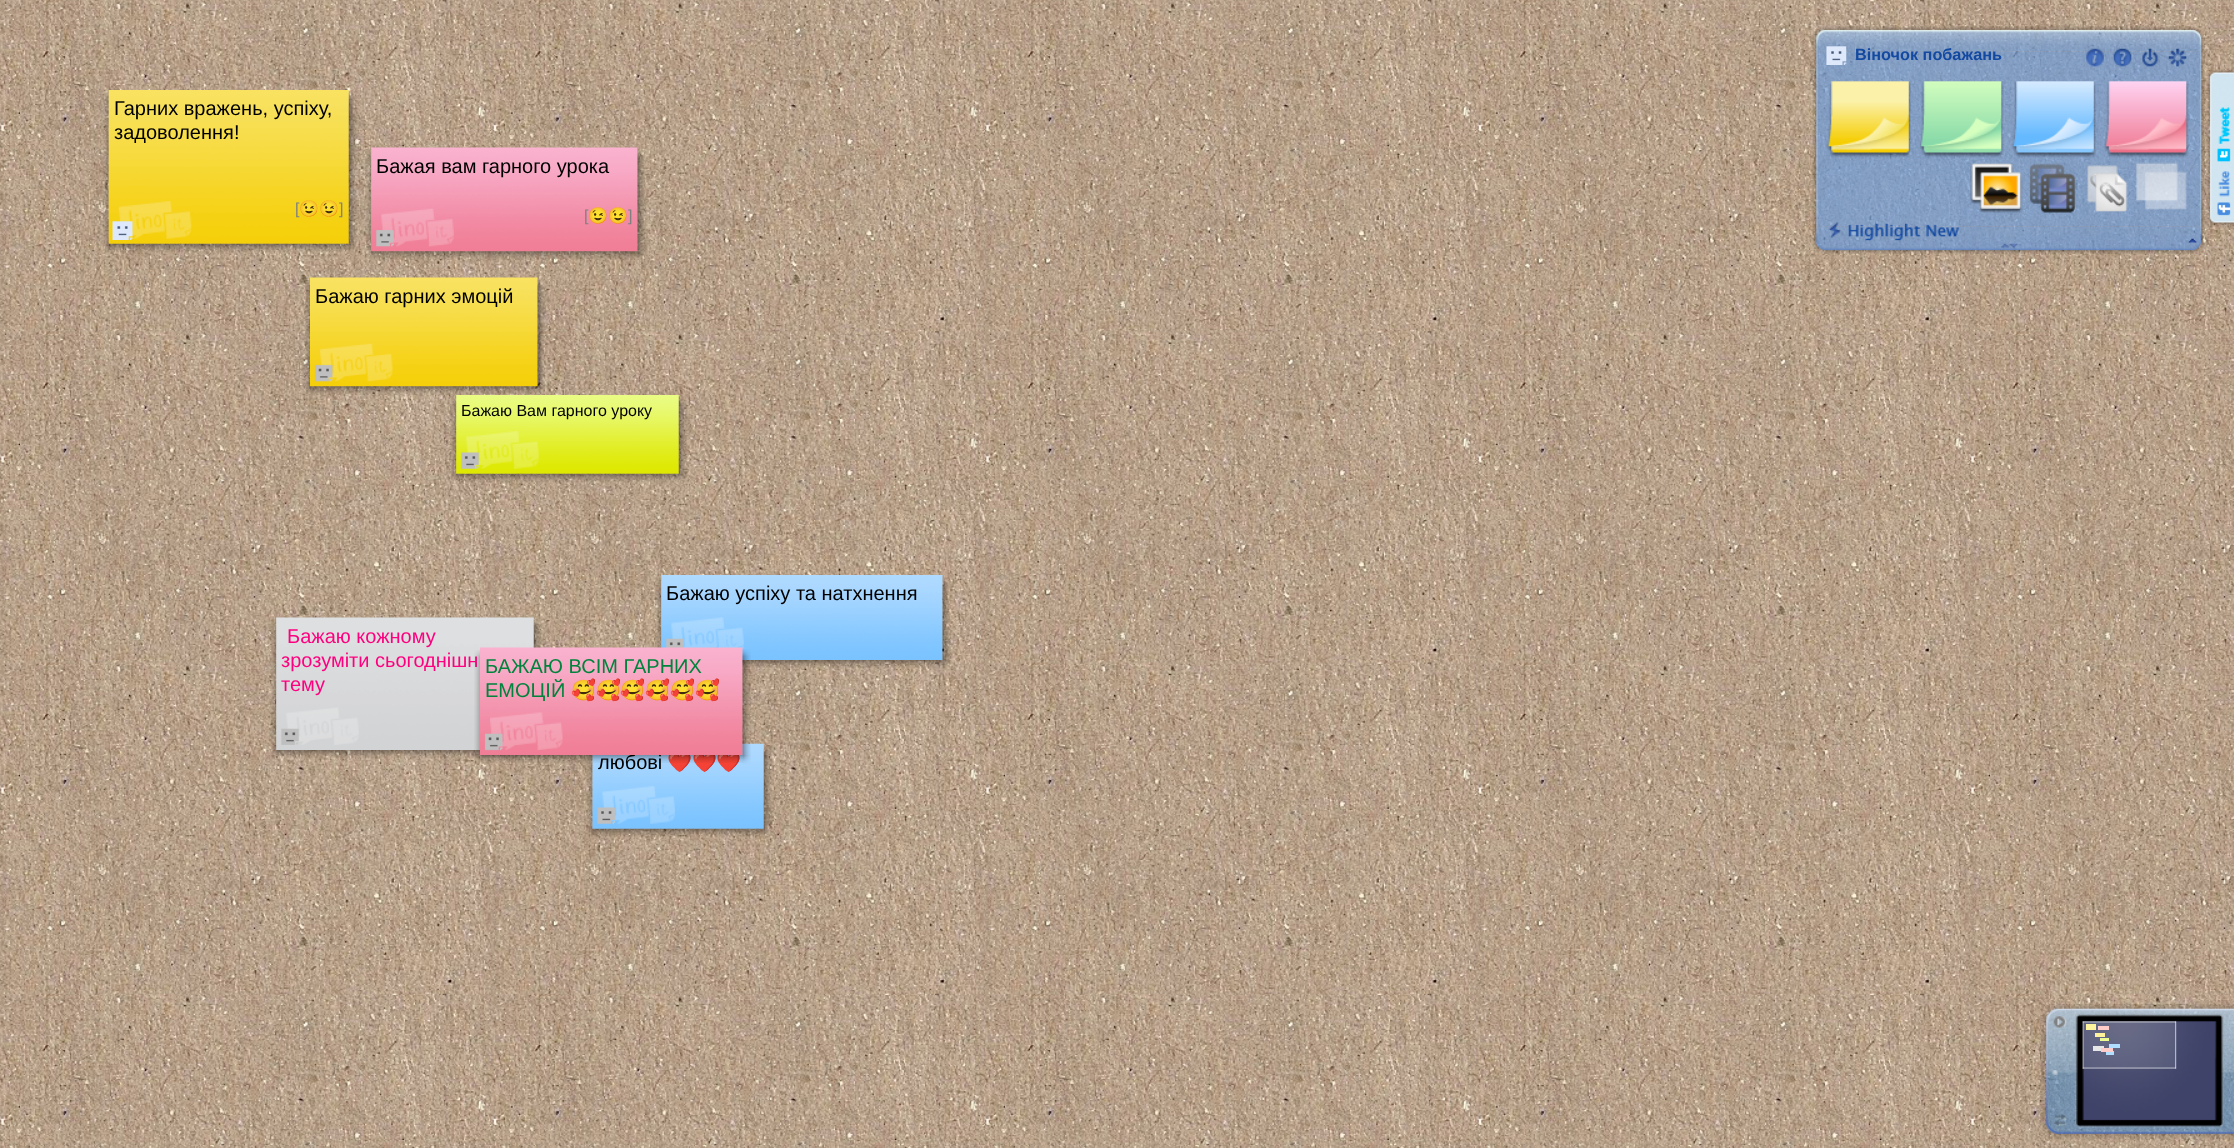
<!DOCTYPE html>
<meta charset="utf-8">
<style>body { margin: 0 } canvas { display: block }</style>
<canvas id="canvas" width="2234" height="1148"></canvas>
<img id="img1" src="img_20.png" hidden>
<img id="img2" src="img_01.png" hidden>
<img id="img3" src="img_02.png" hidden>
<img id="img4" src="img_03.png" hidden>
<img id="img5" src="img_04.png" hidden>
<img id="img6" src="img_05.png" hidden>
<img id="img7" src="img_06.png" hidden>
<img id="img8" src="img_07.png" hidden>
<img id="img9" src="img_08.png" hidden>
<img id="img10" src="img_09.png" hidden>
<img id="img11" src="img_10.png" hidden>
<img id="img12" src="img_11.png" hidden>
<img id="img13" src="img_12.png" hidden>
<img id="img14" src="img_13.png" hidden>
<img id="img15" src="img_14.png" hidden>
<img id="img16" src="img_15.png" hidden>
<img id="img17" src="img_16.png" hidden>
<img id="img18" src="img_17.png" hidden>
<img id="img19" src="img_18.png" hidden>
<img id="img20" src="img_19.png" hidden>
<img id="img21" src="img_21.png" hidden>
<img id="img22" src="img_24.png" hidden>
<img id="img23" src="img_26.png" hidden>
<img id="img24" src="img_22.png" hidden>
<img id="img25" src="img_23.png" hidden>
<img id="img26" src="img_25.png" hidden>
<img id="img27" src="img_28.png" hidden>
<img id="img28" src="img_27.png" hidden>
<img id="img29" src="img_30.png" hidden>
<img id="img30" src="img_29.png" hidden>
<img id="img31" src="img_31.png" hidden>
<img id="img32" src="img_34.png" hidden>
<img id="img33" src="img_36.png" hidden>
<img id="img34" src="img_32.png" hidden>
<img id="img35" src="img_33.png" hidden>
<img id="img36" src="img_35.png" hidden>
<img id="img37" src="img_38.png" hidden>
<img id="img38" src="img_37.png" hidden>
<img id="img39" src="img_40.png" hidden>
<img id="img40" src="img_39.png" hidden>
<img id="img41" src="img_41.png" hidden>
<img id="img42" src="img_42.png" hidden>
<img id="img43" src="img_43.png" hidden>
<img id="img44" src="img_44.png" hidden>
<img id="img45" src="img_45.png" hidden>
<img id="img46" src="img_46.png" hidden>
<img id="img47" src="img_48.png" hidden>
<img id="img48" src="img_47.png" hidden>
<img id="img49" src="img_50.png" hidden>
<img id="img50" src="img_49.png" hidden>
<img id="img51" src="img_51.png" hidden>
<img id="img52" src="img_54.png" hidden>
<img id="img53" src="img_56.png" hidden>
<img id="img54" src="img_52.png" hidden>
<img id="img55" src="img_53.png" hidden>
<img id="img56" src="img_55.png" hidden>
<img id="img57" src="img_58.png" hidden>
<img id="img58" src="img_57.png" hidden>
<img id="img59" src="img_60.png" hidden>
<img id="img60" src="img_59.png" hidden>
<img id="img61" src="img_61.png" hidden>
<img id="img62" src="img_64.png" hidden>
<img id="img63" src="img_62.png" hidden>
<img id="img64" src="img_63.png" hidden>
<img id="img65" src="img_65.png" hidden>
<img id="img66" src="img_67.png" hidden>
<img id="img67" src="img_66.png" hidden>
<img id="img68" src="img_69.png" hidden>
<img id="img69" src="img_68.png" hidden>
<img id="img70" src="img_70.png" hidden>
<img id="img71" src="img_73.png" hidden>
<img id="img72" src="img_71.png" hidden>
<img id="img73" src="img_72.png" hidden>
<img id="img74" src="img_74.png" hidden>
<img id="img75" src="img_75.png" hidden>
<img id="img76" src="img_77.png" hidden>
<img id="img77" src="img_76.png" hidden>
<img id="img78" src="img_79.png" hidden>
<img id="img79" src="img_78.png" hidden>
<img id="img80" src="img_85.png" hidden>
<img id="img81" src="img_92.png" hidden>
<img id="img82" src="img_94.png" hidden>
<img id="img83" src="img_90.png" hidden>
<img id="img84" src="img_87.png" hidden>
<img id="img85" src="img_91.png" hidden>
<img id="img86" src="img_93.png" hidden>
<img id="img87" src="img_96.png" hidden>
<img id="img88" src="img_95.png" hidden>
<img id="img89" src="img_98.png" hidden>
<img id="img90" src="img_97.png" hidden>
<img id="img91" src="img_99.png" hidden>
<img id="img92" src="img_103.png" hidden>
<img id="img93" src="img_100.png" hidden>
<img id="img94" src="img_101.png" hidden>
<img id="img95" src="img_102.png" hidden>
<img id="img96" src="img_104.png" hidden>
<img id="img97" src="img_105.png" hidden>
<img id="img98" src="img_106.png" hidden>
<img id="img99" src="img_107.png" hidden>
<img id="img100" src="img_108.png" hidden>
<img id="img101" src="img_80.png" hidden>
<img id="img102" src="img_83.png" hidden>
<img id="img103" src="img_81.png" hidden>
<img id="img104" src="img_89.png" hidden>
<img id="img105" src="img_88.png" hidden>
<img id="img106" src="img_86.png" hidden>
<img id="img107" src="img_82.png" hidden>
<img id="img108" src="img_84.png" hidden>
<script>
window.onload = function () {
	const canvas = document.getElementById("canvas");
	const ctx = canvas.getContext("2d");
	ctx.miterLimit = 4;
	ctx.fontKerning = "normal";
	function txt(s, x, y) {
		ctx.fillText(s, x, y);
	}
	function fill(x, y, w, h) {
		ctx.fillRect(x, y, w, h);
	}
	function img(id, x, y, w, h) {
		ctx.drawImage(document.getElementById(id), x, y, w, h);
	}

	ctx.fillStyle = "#FFFFFF";
	fill(0, 0, 2234, 1148);
	img("img1", 0, 0, 2234, 1148);
	img("img2", 1812, 26, 394, 26);
	img("img3", 1812, 51, 394, 176);
	img("img4", 1812, 226, 394, 28);
	img("img5", 1826, 46, 21, 19);
	img("img6", 2086, 48, 18, 19);
	img("img7", 2113, 48, 19, 19);
	img("img8", 2142, 48, 16, 19);
	img("img9", 2168, 48, 19, 19);
	img("img10", 1826, 81, 85, 77);
	img("img11", 1919, 81, 85, 77);
	img("img12", 2011, 81, 85, 77);
	img("img13", 2104, 81, 85, 77);
	img("img14", 1970, 163, 53, 50);
	img("img15", 2029, 163, 47, 50);
	img("img16", 2087, 165, 41, 47);
	img("img17", 2136, 162, 51, 48);
	img("img18", 1828, 222, 131, 19);
	img("img19", 2188, 238, 9, 5);
	img("img20", 2001, 243, 17, 5);
	img("img21", 103, 92, 6, 8);
	img("img22", 103, 100, 6, 144);
	img("img23", 103, 243, 6, 9);
	img("img24", 108, 90, 241, 154);
	img("img25", 348, 91, 9, 9);
	img("img26", 348, 100, 9, 144);
	img("img27", 348, 243, 9, 9);
	img("img28", 108, 243, 241, 9);
	img("img29", 118, 201, 74, 38);
	img("img30", 112, 221, 21, 19);
	img("img31", 365, 150, 7, 8);
	img("img32", 365, 157, 7, 95);
	img("img33", 365, 251, 7, 8);
	img("img34", 371, 147, 267, 105);
	img("img35", 637, 149, 9, 9);
	img("img36", 637, 157, 9, 95);
	img("img37", 637, 251, 9, 9);
	img("img38", 371, 251, 267, 9);
	img("img39", 381, 208, 73, 39);
	img("img40", 376, 230, 18, 17);
	img("img41", 304, 280, 6, 8);
	img("img42", 310, 277, 228, 110);
	img("img43", 537, 279, 9, 9);
	img("img44", 304, 287, 6, 100);
	img("img45", 537, 287, 9, 100);
	img("img46", 304, 386, 6, 8);
	img("img47", 537, 386, 9, 9);
	img("img48", 310, 386, 228, 9);
	img("img49", 320, 343, 73, 39);
	img("img50", 314, 364, 19, 18);
	img("img51", 450, 397, 7, 8);
	img("img52", 450, 405, 7, 69);
	img("img53", 450, 473, 7, 9);
	img("img54", 456, 395, 223, 79);
	img("img55", 678, 396, 9, 9);
	img("img56", 678, 405, 9, 69);
	img("img57", 678, 473, 9, 9);
	img("img58", 456, 473, 223, 9);
	img("img59", 466, 431, 73, 38);
	img("img60", 461, 452, 18, 17);
	img("img61", 655, 577, 7, 8);
	img("img62", 655, 585, 7, 63);
	img("img63", 661, 575, 282, 85);
	img("img64", 942, 577, 9, 8);
	img("img65", 942, 585, 9, 75);
	img("img66", 942, 660, 9, 8);
	img("img67", 742, 660, 201, 8);
	img("img68", 671, 617, 73, 34);
	img("img69", 666, 638, 18, 10);
	img("img70", 271, 620, 6, 8);
	img("img71", 270, 627, 7, 123);
	img("img72", 276, 617, 258, 133);
	img("img73", 533, 619, 9, 9);
	img("img74", 533, 627, 9, 21);
	img("img75", 270, 750, 7, 8);
	img("img76", 533, 755, 7, 3);
	img("img77", 276, 750, 258, 8);
	img("img78", 286, 707, 73, 38);
	img("img79", 281, 728, 18, 17);
	img("img80", 474, 755, 6, 8);
	img("img81", 587, 755, 6, 74);
	img("img82", 586, 828, 7, 9);
	img("img83", 592, 743, 172, 86);
	img("img84", 742, 755, 9, 9);
	img("img85", 763, 745, 9, 9);
	img("img86", 763, 753, 9, 76);
	img("img87", 763, 828, 9, 9);
	img("img88", 592, 828, 172, 9);
	img("img89", 602, 786, 73, 38);
	img("img90", 597, 807, 19, 17);
	img("img91", 2206, 68, 28, 159);
	img("img92", 2071, 1004, 163, 136);
	img("img93", 2040, 1004, 32, 136);
	img("img94", 2053, 1016, 14, 12);
	img("img95", 2053, 1113, 14, 14);
	img("img96", 2075, 1013, 149, 115);
	ctx.fillStyle = "#FFF293";
	fill(2086, 1024, 10, 6);
	ctx.fillStyle = "#FFC7C4";
	fill(2098, 1026, 11, 4);
	ctx.fillStyle = "#FFF293";
	fill(2095, 1033, 10, 4);
	ctx.fillStyle = "#EAFC86";
	fill(2100, 1038, 9, 3);
	ctx.fillStyle = "#E4E4E4";
	fill(2093, 1046, 11, 5);
	ctx.fillStyle = "#A6DBFF";
	fill(2106, 1051, 8, 4);
	ctx.fillStyle = "#FFC7C4";
	fill(2101, 1048, 12, 4);
	ctx.fillStyle = "#A6DBFF";
	fill(2109, 1044, 11, 4);
	ctx.fillStyle = "rgba(255, 255, 255, 0.1)";
	fill(2082, 1021, 95, 48);
	img("img97", 2082, 1021, 2, 48);
	img("img98", 2082, 1021, 94, 2);
	img("img99", 2175, 1021, 2, 48);
	img("img100", 2082, 1067, 94, 2);
	ctx.font = "bold 16.25px Liberation Sans";
	ctx.fillStyle = "#1349A0";
	txt("Віночок побажань", 1855, 60);
	ctx.font = "20px Liberation Sans";
	ctx.fillStyle = "#000000";
	txt("Гарних вражень, успіху,", 114, 115);
	txt("задоволення!", 114, 139);
	ctx.font = "16px Liberation Sans";
	ctx.fillStyle = "#808080";
	txt("[", 295, 214);
	ctx.font = "16px Noto Color Emoji";
	txt("😉😉", 299, 214);
	ctx.font = "16px Liberation Sans";
	txt("]", 339, 214);
	ctx.font = "20px Liberation Sans";
	ctx.fillStyle = "#000000";
	txt("Бажая вам гарного урока", 376, 173);
	ctx.font = "16px Liberation Sans";
	ctx.fillStyle = "#808080";
	txt("[", 584, 221);
	ctx.font = "16px Noto Color Emoji";
	txt("😉😉", 588, 221);
	ctx.font = "16px Liberation Sans";
	txt("]", 628, 221);
	ctx.font = "20px Liberation Sans";
	ctx.fillStyle = "#000000";
	txt("Бажаю гарних эмоцій", 315, 303);
	ctx.font = "16px Liberation Sans";
	txt("Бажаю Вам гарного уроку", 461, 416);
	ctx.font = "20px Liberation Sans";
	txt("Бажаю успіху та натхнення", 666, 600);
	ctx.fillStyle = "#FE007F";
	txt("Бажаю кожному", 287, 643);
	txt("зрозуміти сьогоднішн", 281, 667);
	txt("тему", 281, 691);
	img("img101", 474, 650, 6, 8);
	img("img102", 474, 657, 6, 98);
	ctx.fillStyle = "#000000";
	txt("любові", 598, 769);
	ctx.font = "20px Noto Color Emoji";
	txt("❤️❤️❤️", 667, 769);
	img("img103", 480, 647, 263, 108);
	img("img104", 490, 712, 73, 38);
	img("img105", 484, 733, 19, 18);
	ctx.fillStyle = "#00843D";
	txt("🥰🥰🥰🥰🥰🥰", 571, 697);
	ctx.font = "20px Liberation Sans";
	txt("ЕМОЦІЙ", 485, 697);
	txt("БАЖАЮ ВСІМ ГАРНИХ", 485, 673);
	img("img106", 480, 755, 263, 8);
	img("img107", 742, 649, 9, 9);
	img("img108", 742, 657, 9, 98);
};
</script>
